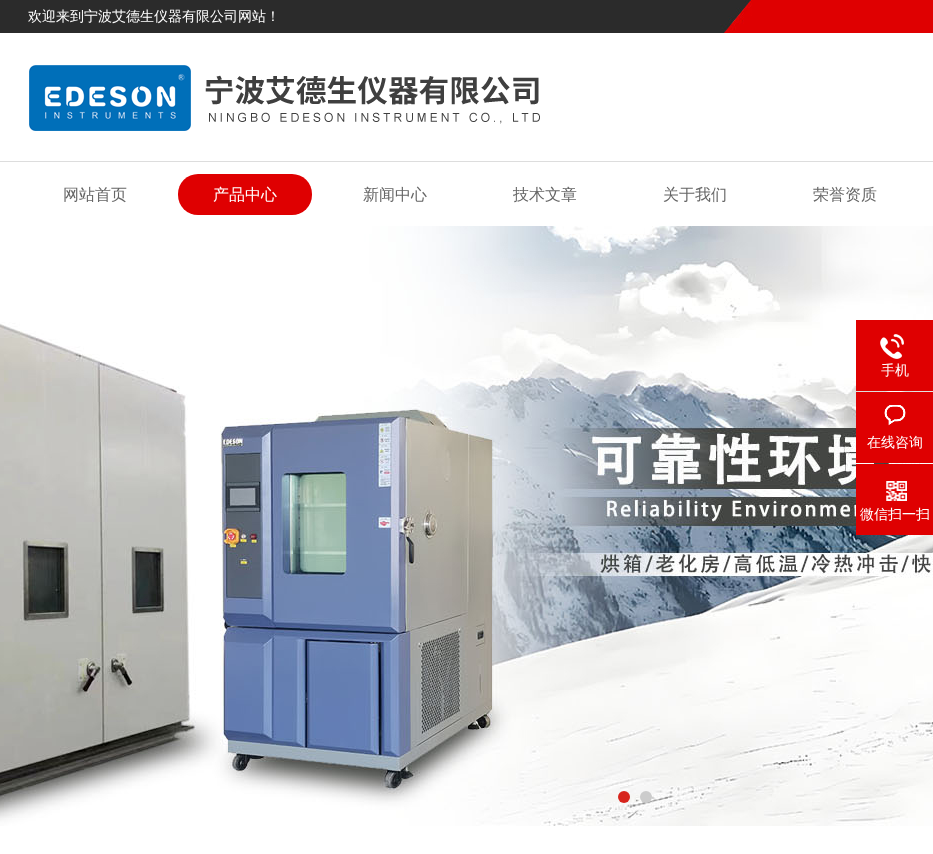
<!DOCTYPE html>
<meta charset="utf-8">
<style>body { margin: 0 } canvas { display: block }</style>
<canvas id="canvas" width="933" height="854"></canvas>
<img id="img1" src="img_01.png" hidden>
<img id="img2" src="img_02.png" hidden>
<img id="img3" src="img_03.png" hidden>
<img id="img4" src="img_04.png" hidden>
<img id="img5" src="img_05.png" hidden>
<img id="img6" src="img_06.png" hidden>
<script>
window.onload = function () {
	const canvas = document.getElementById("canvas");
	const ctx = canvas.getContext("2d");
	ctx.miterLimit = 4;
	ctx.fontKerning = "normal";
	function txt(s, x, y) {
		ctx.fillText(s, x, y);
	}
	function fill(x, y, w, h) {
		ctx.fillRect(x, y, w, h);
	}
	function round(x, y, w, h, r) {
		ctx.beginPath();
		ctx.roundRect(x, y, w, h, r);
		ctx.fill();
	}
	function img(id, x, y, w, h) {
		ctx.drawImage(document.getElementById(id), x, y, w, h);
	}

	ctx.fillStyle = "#FFFFFF";
	fill(0, 0, 933, 854);
	img("img1", 0, 0, 933, 33);
	img("img2", 29, 65, 511, 66);
	ctx.fillStyle = "#DDDDDD";
	fill(0, 161, 933, 1);
	ctx.fillStyle = "#DF0001";
	round(178, 174, 134, 41, 20);
	img("img3", 0, 226, 933, 600);
	ctx.fillStyle = "#D7241D";
	ctx.beginPath();
	ctx.arc(624, 797, 6, 0, Math.PI * 2);
	ctx.fill();
	ctx.fillStyle = "#CCCCCC";
	ctx.beginPath();
	ctx.arc(646, 797, 6, 0, Math.PI * 2);
	ctx.fill();
	ctx.fillStyle = "#DF0001";
	fill(856, 320, 77, 71);
	img("img4", 880, 334, 24, 25);
	fill(856, 392, 77, 71);
	img("img5", 884, 405, 22, 21);
	fill(856, 464, 77, 71);
	img("img6", 886, 481, 21, 20);
	ctx.font = "500 14px WenQuanYi Zen Hei";
	ctx.fillStyle = "#FFFFFF";
	txt("欢迎来到宁波艾德生仪器有限公司网站！", 28, 21);
	ctx.font = "500 16px WenQuanYi Zen Hei";
	ctx.fillStyle = "#666666";
	txt("网站首页", 63, 200);
	ctx.fillStyle = "#FFFFFF";
	txt("产品中心", 213, 200);
	ctx.fillStyle = "#666666";
	txt("新闻中心", 363, 200);
	txt("技术文章", 513, 200);
	txt("关于我们", 663, 200);
	txt("荣誉资质", 813, 200);
	ctx.font = "500 14px WenQuanYi Zen Hei";
	ctx.fillStyle = "#FFFFFF";
	txt("手机", 881, 375);
	txt("在线咨询", 867, 447);
	txt("微信扫一扫", 860, 519);
};
</script>
